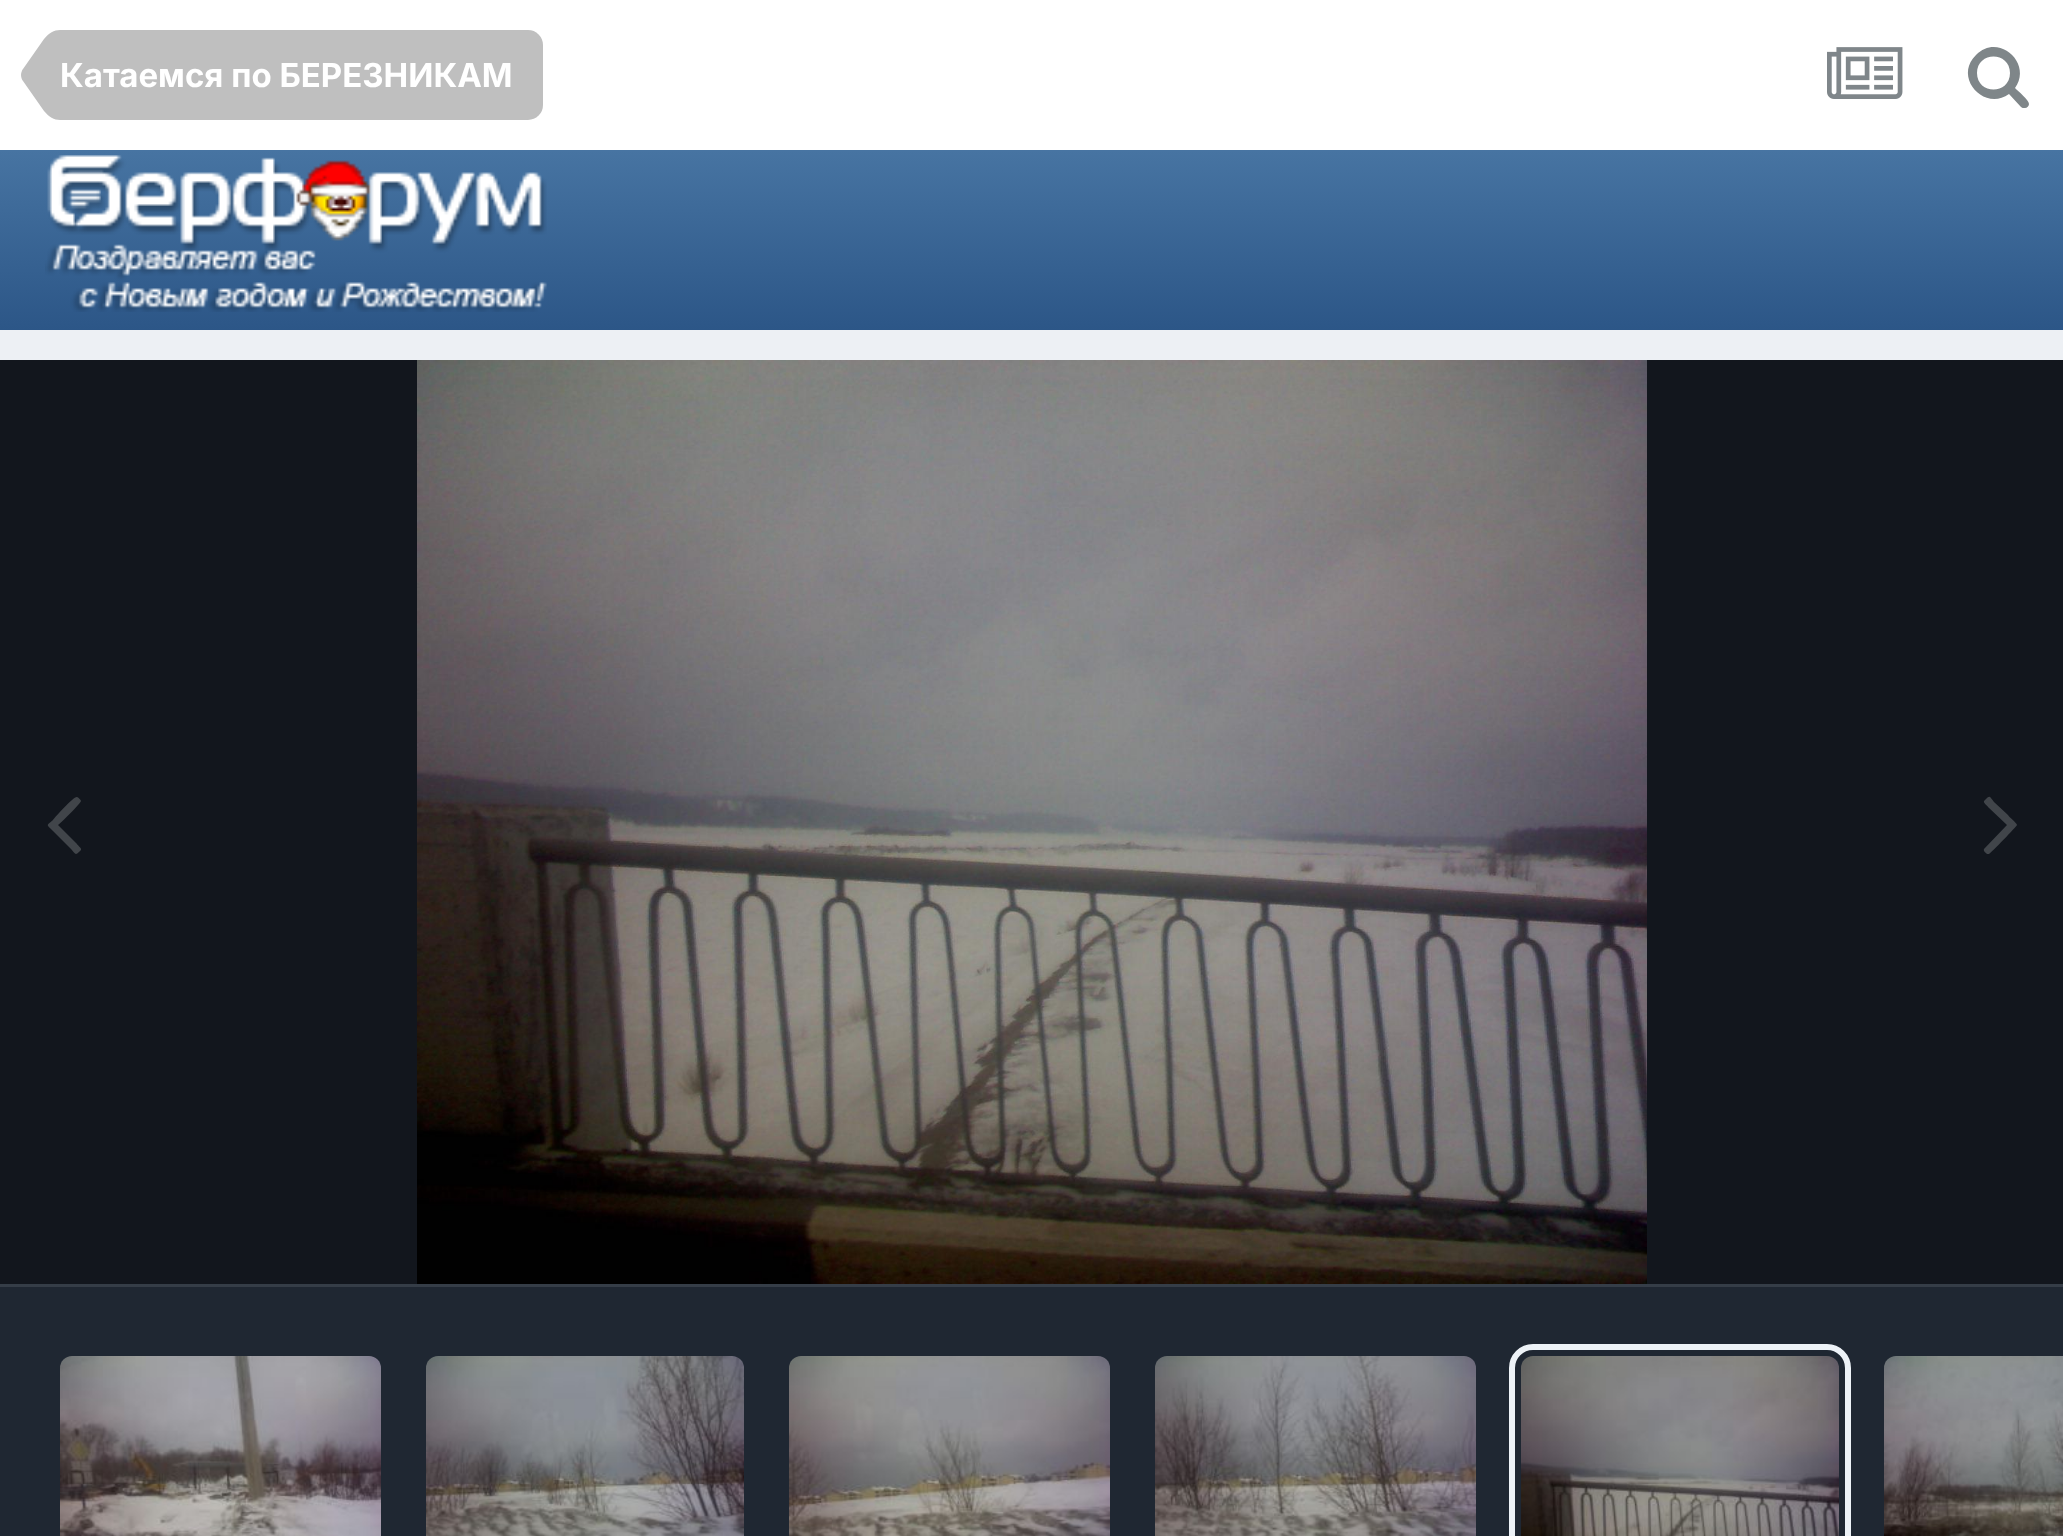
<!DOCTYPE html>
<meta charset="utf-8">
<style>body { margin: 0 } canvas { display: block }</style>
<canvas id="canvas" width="2063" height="1536"></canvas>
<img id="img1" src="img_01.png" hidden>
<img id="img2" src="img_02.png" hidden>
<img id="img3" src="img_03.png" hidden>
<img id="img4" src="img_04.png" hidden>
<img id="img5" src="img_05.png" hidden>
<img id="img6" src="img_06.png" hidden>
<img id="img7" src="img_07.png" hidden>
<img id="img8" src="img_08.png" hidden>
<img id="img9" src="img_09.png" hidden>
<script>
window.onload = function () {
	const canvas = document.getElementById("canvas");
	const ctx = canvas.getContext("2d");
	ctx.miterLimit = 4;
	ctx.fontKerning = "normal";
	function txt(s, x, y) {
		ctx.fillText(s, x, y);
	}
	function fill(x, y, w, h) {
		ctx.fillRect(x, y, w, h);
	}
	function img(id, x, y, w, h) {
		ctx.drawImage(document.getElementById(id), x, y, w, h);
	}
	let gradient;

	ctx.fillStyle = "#EDF0F4";
	fill(0, 0, 2063, 1536);
	ctx.fillStyle = "#FFFFFF";
	fill(0, 0, 2063, 150);
	ctx.fillStyle = "#BFBFBF";
	ctx.beginPath();
	ctx.roundRect(60, 30, 483, 90, [0, 15, 15, 0]);
	ctx.fill();
	ctx.beginPath();
	ctx.moveTo(60, 75);
	ctx.lineTo(60, 120);
	ctx.bezierCurveTo(54, 120, 49, 117, 44, 111);
	ctx.lineTo(23, 81);
	ctx.bezierCurveTo(22, 80, 21, 77, 21, 75);
	ctx.closePath();
	ctx.fill();
	ctx.beginPath();
	ctx.moveTo(60, 75);
	ctx.lineTo(21, 75);
	ctx.bezierCurveTo(21, 73, 22, 70, 23, 69);
	ctx.lineTo(44, 39);
	ctx.bezierCurveTo(49, 33, 54, 30, 60, 30);
	ctx.closePath();
	ctx.fill();
	img("img1", 1827, 47, 76, 52);
	ctx.fillStyle = "#7F8689";
	ctx.beginPath();
	ctx.moveTo(2010, 73);
	ctx.bezierCurveTo(2010, 95, 1977, 95, 1977, 73);
	ctx.bezierCurveTo(1977, 51, 2010, 51, 2010, 73);
	ctx.closePath();
	ctx.moveTo(2029, 104);
	ctx.bezierCurveTo(2029, 100, 2018, 91, 2015, 88);
	ctx.bezierCurveTo(2033, 63, 1998, 32, 1976, 55);
	ctx.bezierCurveTo(1953, 77, 1984, 112, 2009, 94);
	ctx.lineTo(2021, 107);
	ctx.bezierCurveTo(2022, 108, 2023, 108, 2025, 108);
	ctx.bezierCurveTo(2027, 108, 2029, 106, 2029, 104);
	ctx.closePath();
	ctx.fill();
	gradient = ctx.createLinearGradient(1032, 330, 1032, 150);
	gradient.addColorStop(0, "#2C5687");
	gradient.addColorStop(1, "#4774A2");
	ctx.fillStyle = gradient;
	fill(0, 150, 2063, 180);
	img("img2", 45, 155, 502, 157);
	ctx.fillStyle = "#12161D";
	fill(0, 360, 2063, 924);
	img("img3", 417, 360, 1230, 924);
	ctx.fillStyle = "#41454A";
	ctx.beginPath();
	ctx.moveTo(81, 801);
	ctx.bezierCurveTo(81, 800, 78, 797, 77, 797);
	ctx.bezierCurveTo(74, 796, 55, 817, 53, 820);
	ctx.bezierCurveTo(46, 826, 46, 824, 53, 831);
	ctx.lineTo(71, 849);
	ctx.bezierCurveTo(75, 853, 75, 856, 79, 852);
	ctx.lineTo(81, 850);
	ctx.bezierCurveTo(82, 848, 77, 845, 77, 844);
	ctx.lineTo(58, 825);
	ctx.bezierCurveTo(61, 823, 81, 803, 81, 801);
	ctx.closePath();
	ctx.fill();
	ctx.beginPath();
	ctx.moveTo(2017, 825);
	ctx.bezierCurveTo(2017, 823, 2009, 817, 2008, 815);
	ctx.lineTo(1994, 802);
	ctx.bezierCurveTo(1990, 797, 1990, 795, 1986, 799);
	ctx.lineTo(1984, 801);
	ctx.bezierCurveTo(1983, 803, 1988, 806, 1988, 807);
	ctx.lineTo(2007, 825);
	ctx.lineTo(1984, 849);
	ctx.bezierCurveTo(1983, 851, 1986, 853, 1987, 854);
	ctx.lineTo(1989, 854);
	ctx.bezierCurveTo(1991, 853, 2017, 826, 2017, 825);
	ctx.closePath();
	ctx.fill();
	ctx.fillStyle = "#1F2732";
	fill(0, 1287, 2063, 249);
	ctx.fillStyle = "#353D47";
	fill(0, 1284, 2063, 3);
	img("img4", 60, 1356, 321, 180);
	img("img5", 426, 1356, 318, 180);
	img("img6", 789, 1356, 321, 180);
	img("img7", 1155, 1356, 321, 180);
	ctx.beginPath();
	ctx.roundRect(1512, 1347, 336, 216, 21);
	ctx.strokeStyle = "#EDF2F7";
	ctx.lineWidth = 6;
	ctx.stroke();
	img("img8", 1521, 1356, 318, 180);
	img("img9", 1884, 1356, 179, 180);
	ctx.font = "bold 33px Inter";
	ctx.fillStyle = "#FFFFFF";
	txt("Катаемся по БЕРЕЗНИКАМ", 60, 87);
};
</script>
